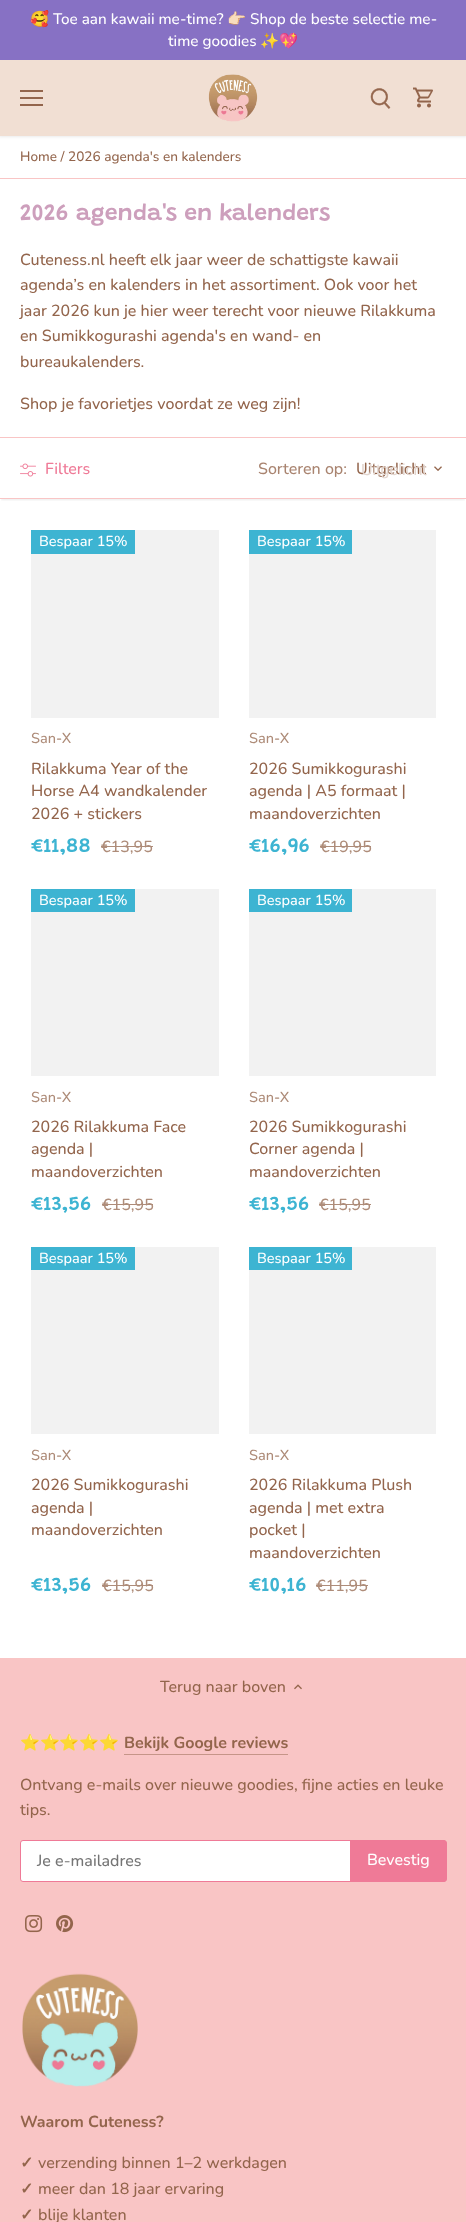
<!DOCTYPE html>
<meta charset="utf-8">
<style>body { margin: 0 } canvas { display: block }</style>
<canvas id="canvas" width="466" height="2222"></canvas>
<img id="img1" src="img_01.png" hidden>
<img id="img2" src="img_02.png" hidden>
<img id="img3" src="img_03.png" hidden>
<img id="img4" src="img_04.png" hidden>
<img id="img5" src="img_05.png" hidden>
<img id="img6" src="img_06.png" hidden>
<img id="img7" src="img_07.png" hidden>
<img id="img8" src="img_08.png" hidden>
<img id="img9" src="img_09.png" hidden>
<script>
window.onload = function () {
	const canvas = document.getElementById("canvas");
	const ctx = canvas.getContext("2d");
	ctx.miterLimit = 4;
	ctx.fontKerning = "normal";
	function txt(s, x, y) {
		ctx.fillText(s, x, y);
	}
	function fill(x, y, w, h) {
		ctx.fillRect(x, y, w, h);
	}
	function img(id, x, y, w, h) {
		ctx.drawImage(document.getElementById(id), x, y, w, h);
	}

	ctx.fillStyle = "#F9C5C5";
	fill(0, 0, 466, 2222);
	ctx.fillStyle = "#FFFFFF";
	fill(0, 136, 466, 1522);
	ctx.fillStyle = "rgba(0, 0, 0, 0.08)";
	ctx.filter = "blur(1.5px)";
	ctx.beginPath();
	ctx.rect(-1, 59, 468, 78);
	ctx.fill();
	ctx.filter = "none";
	ctx.fillStyle = "#8771C4";
	fill(0, 0, 466, 60);
	ctx.fillStyle = "#F1DFD3";
	fill(0, 60, 466, 76);
	ctx.fillStyle = "#93654C";
	fill(20, 90, 23, 2);
	fill(20, 97, 23, 2);
	fill(20, 104, 23, 2);
	img("img1", 208, 74, 50, 48);
	img("img2", 370, 88, 21, 21);
	img("img3", 413, 87, 20, 21);
	ctx.fillStyle = "#F9C5C5";
	fill(0, 178, 466, 1);
	ctx.save();
	ctx.beginPath();
	ctx.rect(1, 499, 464, 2);
	ctx.clip();
	ctx.fillStyle = "rgba(0, 0, 0, 0.08)";
	ctx.filter = "blur(1.5px)";
	ctx.beginPath();
	ctx.rect(1, 440, 464, 60);
	ctx.fill();
	ctx.filter = "none";
	ctx.restore();
	fill(0, 437, 466, 1);
	fill(0, 498, 466, 1);
	img("img4", 20, 463, 16, 14);
	img("img5", 434, 466, 8, 5);
	ctx.fillStyle = "#F2F2F2";
	fill(31, 530, 188, 188);
	ctx.fillStyle = "#3DB4D2";
	fill(31, 530, 104, 24);
	ctx.fillStyle = "#AE8C79";
	fill(101, 846, 52, 1);
	ctx.fillStyle = "#F2F2F2";
	fill(249, 530, 187, 188);
	ctx.fillStyle = "#3DB4D2";
	fill(249, 530, 103, 24);
	ctx.fillStyle = "#AE8C79";
	fill(320, 846, 51, 1);
	ctx.fillStyle = "#F2F2F2";
	fill(31, 889, 188, 187);
	ctx.fillStyle = "#3DB4D2";
	fill(31, 889, 104, 23);
	ctx.fillStyle = "#AE8C79";
	fill(102, 1204, 51, 1);
	ctx.fillStyle = "#F2F2F2";
	fill(249, 889, 187, 187);
	ctx.fillStyle = "#3DB4D2";
	fill(249, 889, 103, 23);
	ctx.fillStyle = "#AE8C79";
	fill(319, 1204, 52, 1);
	ctx.fillStyle = "#F2F2F2";
	fill(31, 1247, 188, 187);
	ctx.fillStyle = "#3DB4D2";
	fill(31, 1247, 104, 23);
	ctx.fillStyle = "#AE8C79";
	fill(102, 1585, 51, 1);
	ctx.fillStyle = "#F2F2F2";
	fill(249, 1247, 187, 187);
	ctx.fillStyle = "#3DB4D2";
	fill(249, 1247, 103, 23);
	ctx.fillStyle = "#AE8C79";
	fill(316, 1585, 52, 1);
	img("img6", 294, 1684, 8, 6);
	ctx.fillStyle = "#C69589";
	fill(124, 1754, 164, 1);
	ctx.fillStyle = "#FFFFFF";
	ctx.beginPath();
	ctx.roundRect(20.5, 1840.5, 425, 41, 2.5);
	ctx.fill();
	ctx.strokeStyle = "#EF7A97";
	ctx.stroke();
	ctx.fillStyle = "#EF7A97";
	ctx.beginPath();
	ctx.roundRect(350.5, 1840.5, 96, 41, [0, 2.5, 2.5, 0]);
	ctx.fill();
	ctx.stroke();
	img("img7", 25, 1915, 18, 18);
	img("img8", 56, 1915, 18, 18);
	img("img9", 22, 1973, 116, 114);
	ctx.font = "15.25px Noto Color Emoji";
	ctx.fillStyle = "#FFFFFF";
	txt("🥰", 30, 24);
	ctx.font = "500 15.25px Nunito";
	txt("Toe aan kawaii me-time?", 53, 24);
	ctx.font = "15.25px Noto Color Emoji";
	txt("👉🏻", 227, 24);
	ctx.font = "500 15.25px Nunito";
	txt("Shop de beste selectie me-", 250, 24);
	txt("time goodies", 168, 46);
	ctx.font = "15.25px Noto Color Emoji";
	txt("✨💖", 260, 46);
	ctx.font = "500 13.6px Nunito";
	ctx.fillStyle = "#93654C";
	txt("Home / 2026 agenda's en kalenders", 20, 161);
	ctx.font = "600 23px Grandstander";
	ctx.fillStyle = "#CD9FBC";
	txt("2026 agenda's en kalenders", 20, 220);
	ctx.font = "500 16px Nunito";
	ctx.fillStyle = "#93654C";
	txt("Cuteness.nl heeft elk jaar weer de schattigste kawaii", 20, 265);
	txt("agenda’s en kalenders in het assortiment. Ook voor het", 20, 290);
	txt("jaar 2026 kun je hier weer terecht voor nieuwe Rilakkuma", 20, 316);
	txt("en Sumikkogurashi agenda's en wand- en", 20, 341);
	txt("bureaukalenders.", 20, 367);
	txt("Shop je favorietjes voordat ze weg zijn!", 20, 409);
	ctx.fillStyle = "#EF7A97";
	txt("Filters", 45, 474);
	ctx.fillStyle = "#A98470";
	txt("Sorteren op:", 258, 474);
	ctx.fillStyle = "#93654C";
	txt("Uitgelicht", 356, 474);
	ctx.font = "16px Liberation Sans";
	ctx.fillStyle = "#E2D5CE";
	txt("Uitgelicht", 361, 475);
	ctx.font = "500 14.5px Nunito";
	ctx.fillStyle = "#FFFFFF";
	txt("Bespaar 15%", 39, 546);
	ctx.fillStyle = "#AE8C79";
	txt("San-X", 31, 743);
	ctx.font = "500 16px Nunito";
	ctx.fillStyle = "#93654C";
	txt("Rilakkuma Year of the", 31, 774);
	txt("Horse A4 wandkalender", 31, 796);
	txt("2026 + stickers", 31, 819);
	ctx.font = "600 20px Grandstander";
	ctx.fillStyle = "#3DB4D2";
	txt("€11,88", 31, 852);
	ctx.font = "500 16px Nunito";
	ctx.fillStyle = "#AE8C79";
	txt("€13,95", 101, 852);
	ctx.font = "500 14.5px Nunito";
	ctx.fillStyle = "#FFFFFF";
	txt("Bespaar 15%", 257, 546);
	ctx.fillStyle = "#AE8C79";
	txt("San-X", 249, 743);
	ctx.font = "500 16px Nunito";
	ctx.fillStyle = "#93654C";
	txt("2026 Sumikkogurashi", 249, 774);
	txt("agenda | A5 formaat |", 249, 796);
	txt("maandoverzichten", 249, 819);
	ctx.font = "600 20px Grandstander";
	ctx.fillStyle = "#3DB4D2";
	txt("€16,96", 249, 852);
	ctx.font = "500 16px Nunito";
	ctx.fillStyle = "#AE8C79";
	txt("€19,95", 320, 852);
	ctx.font = "500 14.5px Nunito";
	ctx.fillStyle = "#FFFFFF";
	txt("Bespaar 15%", 39, 905);
	ctx.fillStyle = "#AE8C79";
	txt("San-X", 31, 1102);
	ctx.font = "500 16px Nunito";
	ctx.fillStyle = "#93654C";
	txt("2026 Rilakkuma Face", 31, 1132);
	txt("agenda |", 31, 1154);
	txt("maandoverzichten", 31, 1177);
	ctx.font = "600 20px Grandstander";
	ctx.fillStyle = "#3DB4D2";
	txt("€13,56", 31, 1210);
	ctx.font = "500 16px Nunito";
	ctx.fillStyle = "#AE8C79";
	txt("€15,95", 102, 1210);
	ctx.font = "500 14.5px Nunito";
	ctx.fillStyle = "#FFFFFF";
	txt("Bespaar 15%", 257, 905);
	ctx.fillStyle = "#AE8C79";
	txt("San-X", 249, 1102);
	ctx.font = "500 16px Nunito";
	ctx.fillStyle = "#93654C";
	txt("2026 Sumikkogurashi", 249, 1132);
	txt("Corner agenda |", 249, 1154);
	txt("maandoverzichten", 249, 1177);
	ctx.font = "600 20px Grandstander";
	ctx.fillStyle = "#3DB4D2";
	txt("€13,56", 249, 1210);
	ctx.font = "500 16px Nunito";
	ctx.fillStyle = "#AE8C79";
	txt("€15,95", 319, 1210);
	ctx.font = "500 14.5px Nunito";
	ctx.fillStyle = "#FFFFFF";
	txt("Bespaar 15%", 39, 1263);
	ctx.fillStyle = "#AE8C79";
	txt("San-X", 31, 1460);
	ctx.font = "500 16px Nunito";
	ctx.fillStyle = "#93654C";
	txt("2026 Sumikkogurashi", 31, 1490);
	txt("agenda |", 31, 1513);
	txt("maandoverzichten", 31, 1535);
	ctx.font = "600 20px Grandstander";
	ctx.fillStyle = "#3DB4D2";
	txt("€13,56", 31, 1591);
	ctx.font = "500 16px Nunito";
	ctx.fillStyle = "#AE8C79";
	txt("€15,95", 102, 1591);
	ctx.font = "500 14.5px Nunito";
	ctx.fillStyle = "#FFFFFF";
	txt("Bespaar 15%", 257, 1263);
	ctx.fillStyle = "#AE8C79";
	txt("San-X", 249, 1460);
	ctx.font = "500 16px Nunito";
	ctx.fillStyle = "#93654C";
	txt("2026 Rilakkuma Plush", 249, 1490);
	txt("agenda | met extra", 249, 1513);
	txt("pocket |", 249, 1535);
	txt("maandoverzichten", 249, 1558);
	ctx.font = "600 20px Grandstander";
	ctx.fillStyle = "#3DB4D2";
	txt("€10,16", 249, 1591);
	ctx.font = "500 16px Nunito";
	ctx.fillStyle = "#AE8C79";
	txt("€11,95", 316, 1591);
	ctx.fillStyle = "#93654C";
	txt("Terug naar boven", 160, 1692);
	ctx.font = "16px Noto Color Emoji";
	txt("⭐️⭐️⭐️⭐️⭐️", 20, 1748);
	ctx.font = "bold 16px Nunito";
	txt("Bekijk Google reviews", 124, 1748);
	ctx.font = "500 16px Nunito";
	txt("Ontvang e-mails over nieuwe goodies, fijne acties en leuke", 20, 1790);
	txt("tips.", 20, 1815);
	ctx.fillStyle = "#757575";
	txt("Je e-mailadres", 37, 1866);
	ctx.fillStyle = "#FFFFFF";
	txt("Bevestig", 367, 1865);
	ctx.font = "bold 16px Nunito";
	ctx.fillStyle = "#93654C";
	txt("Waarom Cuteness?", 20, 2127);
	ctx.font = "bold 16px DejaVu Sans";
	txt("✓", 20, 2168);
	ctx.font = "500 16px Nunito";
	txt("verzending binnen 1–2 werkdagen", 38, 2168);
	ctx.font = "bold 16px DejaVu Sans";
	txt("✓", 20, 2194);
	ctx.font = "500 16px Nunito";
	txt("meer dan 18 jaar ervaring", 38, 2194);
	ctx.font = "bold 16px DejaVu Sans";
	txt("✓", 20, 2220);
	ctx.font = "500 16px Nunito";
	txt("blije klanten", 38, 2220);
};
</script>
